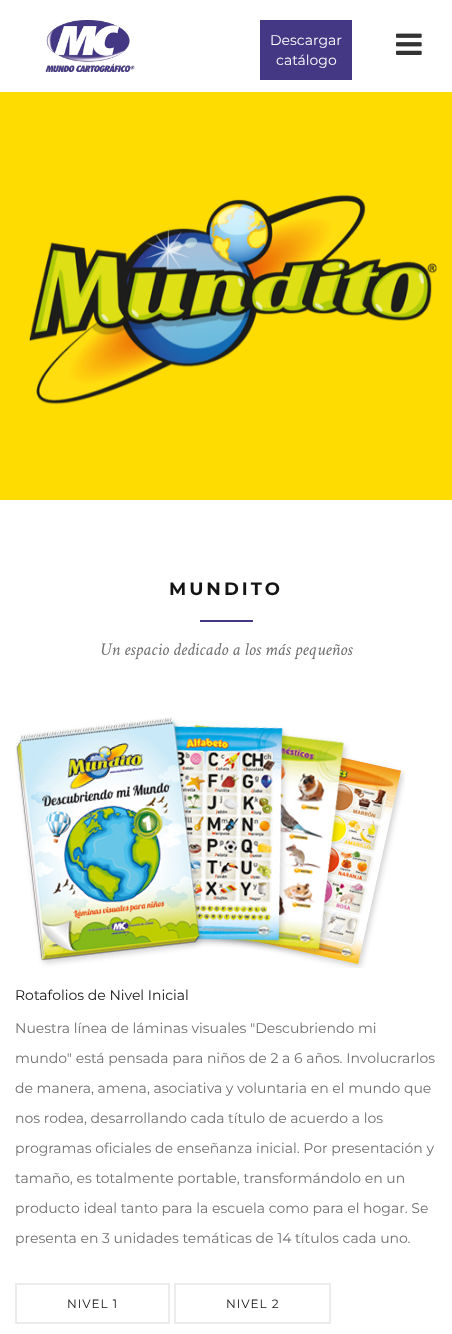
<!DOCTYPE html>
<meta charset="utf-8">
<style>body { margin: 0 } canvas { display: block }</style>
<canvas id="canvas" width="452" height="1334"></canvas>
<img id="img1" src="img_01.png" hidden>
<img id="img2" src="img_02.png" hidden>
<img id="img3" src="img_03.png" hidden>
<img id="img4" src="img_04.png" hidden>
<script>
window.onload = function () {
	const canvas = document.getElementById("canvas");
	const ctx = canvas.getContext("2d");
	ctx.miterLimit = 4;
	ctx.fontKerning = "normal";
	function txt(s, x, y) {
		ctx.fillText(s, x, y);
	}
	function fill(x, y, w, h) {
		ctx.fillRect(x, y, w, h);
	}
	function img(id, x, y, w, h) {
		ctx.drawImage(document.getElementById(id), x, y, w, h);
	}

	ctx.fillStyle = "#FFFFFF";
	fill(0, 0, 452, 1334);
	img("img1", 45, 20, 90, 52);
	ctx.fillStyle = "#443783";
	fill(260, 20, 92, 60);
	img("img2", 396, 33, 26, 22);
	ctx.fillStyle = "#FEDC01";
	fill(0, 92, 452, 408);
	img("img3", 29, 195, 408, 210);
	ctx.fillStyle = "#443783";
	fill(200, 620, 53, 2);
	img("img4", 15, 717, 390, 251);
	ctx.strokeStyle = "#ECECEC";
	ctx.lineWidth = 2;
	ctx.strokeRect(16, 1284, 153, 39);
	ctx.strokeRect(175, 1284, 155, 39);
	ctx.font = "14px Montserrat";
	ctx.fillStyle = "#FFFFFF";
	txt("Descargar", 270, 45);
	txt("catálogo", 276, 65);
	ctx.letterSpacing = "3px";
	ctx.font = "bold 18px Montserrat";
	ctx.fillStyle = "#141414";
	txt("MUNDITO", 169, 595);
	ctx.letterSpacing = "0px";
	ctx.font = "italic 18px Crimson Text";
	ctx.fillStyle = "#6F6F6F";
	txt("Un espacio dedicado a los más pequeños", 100, 655);
	ctx.font = "14px Montserrat";
	ctx.fillStyle = "#141414";
	txt("Rotafolios de Nivel Inicial", 15, 1000);
	ctx.fillStyle = "#6F6F6F";
	txt("Nuestra línea de láminas visuales \"Descubriendo mi", 15, 1033);
	txt("mundo\" está pensada para niños de 2 a 6 años. Involucrarlos", 15, 1063);
	txt("de manera, amena, asociativa y voluntaria en el mundo que", 15, 1093);
	txt("nos rodea, desarrollando cada título de acuerdo a los", 15, 1123);
	txt("programas oficiales de enseñanza inicial. Por presentación y", 15, 1153);
	txt("tamaño, es totalmente portable, transformándolo en un", 15, 1183);
	txt("producto ideal tanto para la escuela como para el hogar. Se", 15, 1213);
	txt("presenta en 3 unidades temáticas de 14 títulos cada uno.", 15, 1243);
	ctx.letterSpacing = "1px";
	ctx.font = "12px Montserrat";
	ctx.fillStyle = "#141414";
	txt("NIVEL 1", 67, 1308);
	txt("NIVEL 2", 226, 1308);
};
</script>
